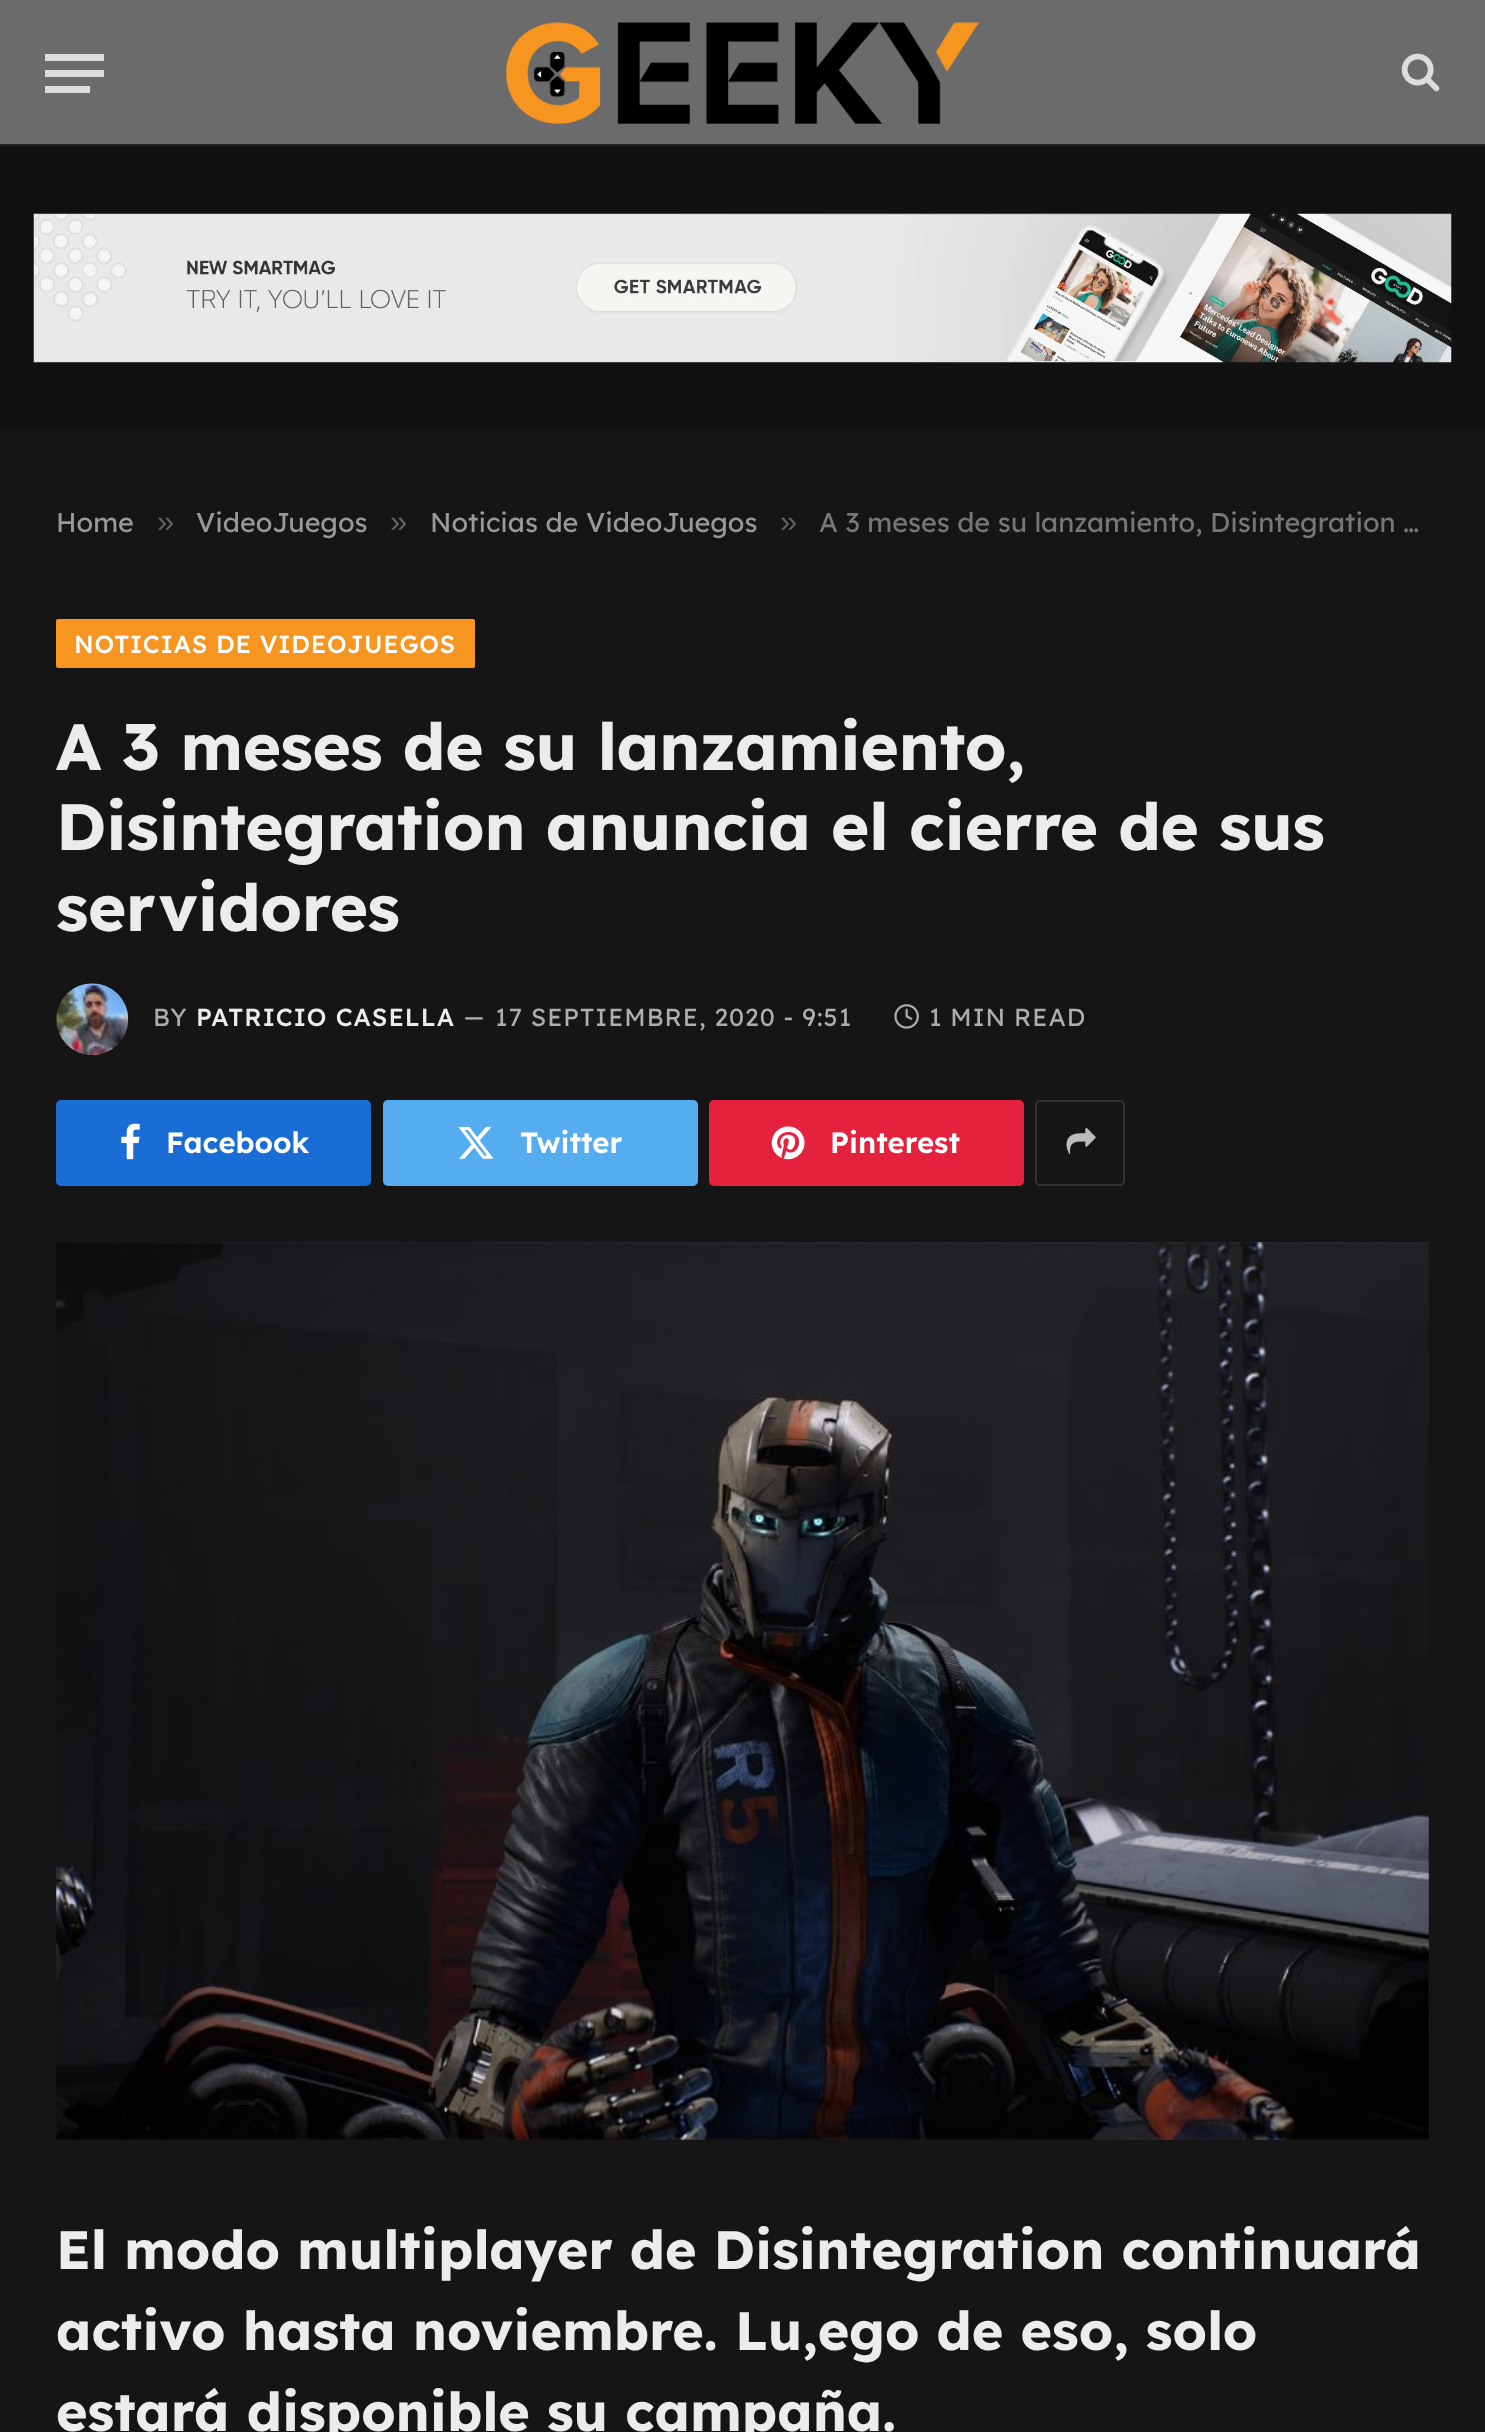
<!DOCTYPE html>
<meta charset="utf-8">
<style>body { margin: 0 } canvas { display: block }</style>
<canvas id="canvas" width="1485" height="2432"></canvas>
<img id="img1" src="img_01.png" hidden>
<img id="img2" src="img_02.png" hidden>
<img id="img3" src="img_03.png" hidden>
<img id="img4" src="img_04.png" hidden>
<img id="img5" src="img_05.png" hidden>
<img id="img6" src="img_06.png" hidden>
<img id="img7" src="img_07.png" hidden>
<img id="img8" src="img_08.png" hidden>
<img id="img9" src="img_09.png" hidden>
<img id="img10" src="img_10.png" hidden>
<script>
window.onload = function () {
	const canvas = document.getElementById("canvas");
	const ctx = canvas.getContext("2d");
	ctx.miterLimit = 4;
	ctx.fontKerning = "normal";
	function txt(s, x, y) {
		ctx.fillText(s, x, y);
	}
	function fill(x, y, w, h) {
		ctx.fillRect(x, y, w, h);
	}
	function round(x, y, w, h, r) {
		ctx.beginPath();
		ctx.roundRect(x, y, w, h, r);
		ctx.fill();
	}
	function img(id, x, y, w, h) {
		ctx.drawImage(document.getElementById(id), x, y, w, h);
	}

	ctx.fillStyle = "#151516";
	fill(0, 0, 1485, 2432);
	ctx.fillStyle = "#6B6B6B";
	fill(0, 0, 1485, 144);
	ctx.fillStyle = "#222222";
	fill(0, 144, 1485, 2);
	ctx.fillStyle = "#DDDDDD";
	fill(45, 86, 45, 7);
	fill(45, 54, 59, 7);
	fill(45, 70, 59, 7);
	img("img1", 506, 22, 473, 102);
	img("img2", 1401, 53, 39, 39);
	ctx.fillStyle = "#111111";
	fill(0, 146, 1485, 284);
	img("img3", 33, 213, 1419, 150);
	ctx.fillStyle = "#F79521";
	round(56, 619, 419, 49, 2);
	img("img4", 56, 983, 73, 73);
	img("img5", 894, 1004, 25, 25);
	ctx.fillStyle = "#1A6DD4";
	round(56, 1100, 315, 86, 5);
	img("img6", 121, 1123, 19, 37);
	ctx.fillStyle = "#55ACEF";
	round(383, 1100, 315, 86, 5);
	img("img7", 458, 1126, 36, 33);
	ctx.fillStyle = "#E4223E";
	round(709, 1100, 315, 86, 5);
	img("img8", 771, 1126, 34, 34);
	ctx.beginPath();
	ctx.roundRect(1036, 1101, 88, 84, 4);
	ctx.strokeStyle = "#333333";
	ctx.lineWidth = 2;
	ctx.stroke();
	img("img9", 1066, 1128, 30, 26);
	img("img10", 56, 1242, 1373, 898);
	ctx.font = "27px Lexend Deca";
	ctx.fillStyle = "#999999";
	txt("Home", 56, 532);
	ctx.font = "31px Liberation Sans";
	ctx.fillStyle = "#636364";
	txt("»", 157, 532);
	ctx.font = "27px Lexend Deca";
	ctx.fillStyle = "#999999";
	txt("VideoJuegos", 196, 532);
	ctx.font = "31px Liberation Sans";
	ctx.fillStyle = "#636364";
	txt("»", 390, 532);
	ctx.font = "27px Lexend Deca";
	ctx.fillStyle = "#999999";
	txt("Noticias de VideoJuegos", 430, 532);
	ctx.font = "31px Liberation Sans";
	ctx.fillStyle = "#636364";
	txt("»", 780, 532);
	ctx.font = "27px Lexend Deca";
	ctx.fillStyle = "#777777";
	txt("A 3 meses de su lanzamiento, Disintegration …", 819, 532);
	ctx.letterSpacing = "0.75px";
	ctx.font = "500 24.75px Lexend Deca";
	ctx.fillStyle = "#FFFFFF";
	txt("NOTICIAS DE VIDEOJUEGOS", 74, 653);
	ctx.letterSpacing = "-0.35px";
	ctx.font = "bold 65.25px Lexend Deca";
	ctx.fillStyle = "#ECECEC";
	txt("A 3 meses de su lanzamiento,", 56, 770);
	txt("Disintegration anuncia el cierre de sus", 56, 850);
	txt("servidores", 56, 931);
	ctx.letterSpacing = "1px";
	ctx.font = "24.75px Lexend Deca";
	ctx.fillStyle = "#ADADAD";
	txt("BY", 153, 1026);
	ctx.font = "500 24.75px Lexend Deca";
	ctx.fillStyle = "#ECECEC";
	txt("PATRICIO CASELLA", 196, 1026);
	ctx.font = "23px Lexend Deca";
	ctx.fillStyle = "#ADADAD";
	txt("—", 464, 1025);
	ctx.font = "24.75px Lexend Deca";
	txt("17 SEPTIEMBRE, 2020 - 9:51", 495, 1026);
	txt("1 MIN READ", 929, 1026);
	ctx.letterSpacing = "0px";
	ctx.font = "600 29.25px Lexend Deca";
	ctx.fillStyle = "#FFFFFF";
	txt("Facebook", 166, 1153);
	txt("Twitter", 520, 1153);
	txt("Pinterest", 830, 1153);
	ctx.wordSpacing = "-0.25px";
	ctx.font = "bold 53.8px Lexend Deca";
	ctx.fillStyle = "#ECECEC";
	txt("El modo multiplayer de Disintegration continuará", 56, 2269);
	ctx.wordSpacing = "0px";
	txt("activo hasta noviembre. Lu,ego de eso, solo", 56, 2350);
	txt("estará disponible su campaña.", 56, 2431);
};
</script>
